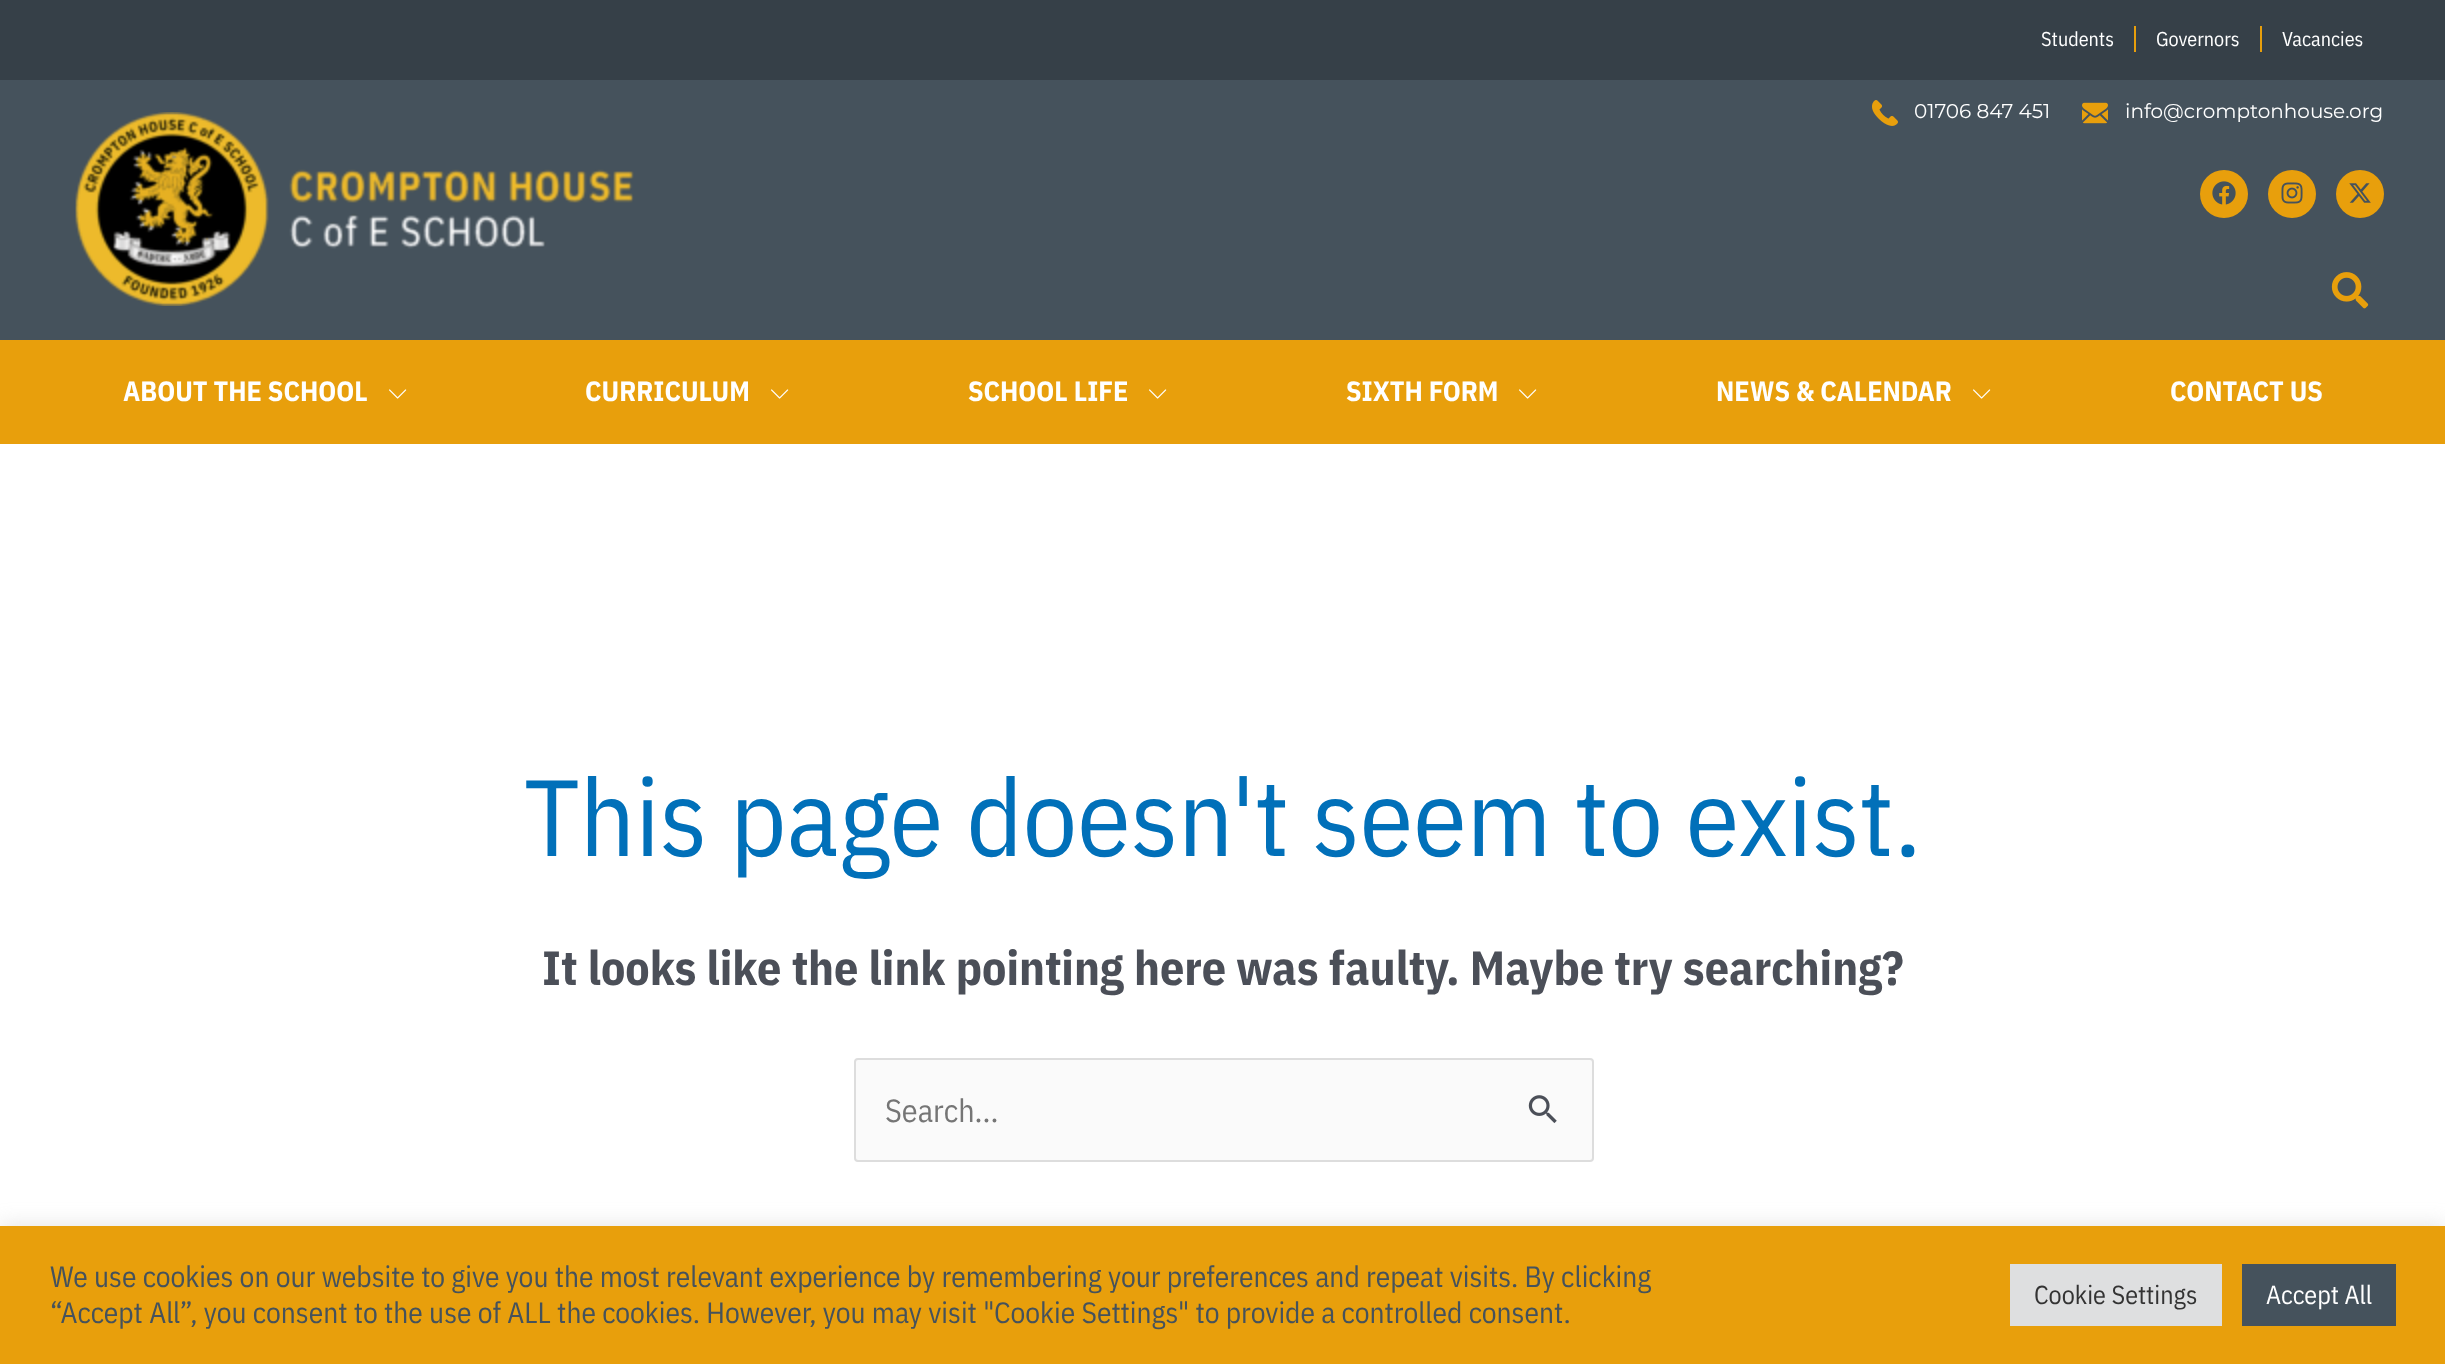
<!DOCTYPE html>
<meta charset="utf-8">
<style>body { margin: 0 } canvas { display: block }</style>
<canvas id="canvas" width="2445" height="1364"></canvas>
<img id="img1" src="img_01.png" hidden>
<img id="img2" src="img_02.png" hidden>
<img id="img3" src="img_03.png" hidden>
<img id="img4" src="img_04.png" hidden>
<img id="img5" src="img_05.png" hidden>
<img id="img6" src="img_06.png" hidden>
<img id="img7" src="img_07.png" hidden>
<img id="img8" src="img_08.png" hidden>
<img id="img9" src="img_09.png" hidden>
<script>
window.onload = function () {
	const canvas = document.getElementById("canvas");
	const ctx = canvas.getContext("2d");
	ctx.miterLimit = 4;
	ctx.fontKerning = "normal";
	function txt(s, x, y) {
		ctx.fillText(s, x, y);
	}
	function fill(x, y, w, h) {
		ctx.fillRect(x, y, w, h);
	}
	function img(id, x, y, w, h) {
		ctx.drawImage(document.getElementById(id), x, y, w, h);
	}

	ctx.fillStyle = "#FFFFFF";
	fill(0, 0, 2445, 1364);
	ctx.fillStyle = "#364048";
	fill(0, 0, 2445, 80);
	ctx.fillStyle = "#E89F0C";
	fill(2134, 26, 2, 26);
	fill(2260, 26, 2, 26);
	ctx.fillStyle = "#45525C";
	fill(0, 80, 2445, 260);
	img("img1", 75, 112, 559, 194);
	img("img2", 1872, 100, 26, 26);
	img("img3", 2082, 102, 26, 22);
	ctx.fillStyle = "#E89F0C";
	ctx.beginPath();
	ctx.arc(2224, 194, 24, 0, Math.PI * 2);
	ctx.fill();
	img("img4", 2212, 181, 24, 24);
	ctx.beginPath();
	ctx.arc(2292, 194, 24, 0, Math.PI * 2);
	ctx.fill();
	img("img5", 2281, 182, 22, 22);
	ctx.beginPath();
	ctx.arc(2360, 194, 24, 0, Math.PI * 2);
	ctx.fill();
	img("img6", 2349, 183, 22, 20);
	img("img7", 2331, 272, 38, 37);
	fill(0, 340, 2445, 104);
	img("img8", 389, 389, 18, 10);
	img("img8", 771, 389, 18, 10);
	img("img8", 1149, 389, 18, 10);
	img("img8", 1519, 389, 18, 10);
	img("img8", 1973, 389, 18, 10);
	ctx.fillStyle = "#FAFAFA";
	ctx.beginPath();
	ctx.roundRect(855, 1059, 738, 102, 3);
	ctx.fill();
	ctx.strokeStyle = "#DDDDDD";
	ctx.lineWidth = 2;
	ctx.stroke();
	img("img9", 1528, 1095, 29, 29);
	ctx.fillStyle = "rgba(172, 171, 171, 0.3)";
	ctx.filter = "blur(10px)";
	ctx.beginPath();
	ctx.rect(0, 1224, 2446, 138);
	ctx.fill();
	ctx.filter = "none";
	ctx.fillStyle = "#E89F0C";
	fill(0, 1226, 2445, 138);
	ctx.fillStyle = "#DEDFE0";
	fill(2010, 1264, 212, 62);
	ctx.fillStyle = "#45525C";
	fill(2242, 1264, 154, 62);
	ctx.font = "20px IBM Plex Sans Condensed";
	ctx.fillStyle = "#FFFFFF";
	txt("Students", 2041, 46);
	txt("Governors", 2156, 46);
	txt("Vacancies", 2282, 46);
	ctx.font = "20px Montserrat";
	txt("01706 847 451", 1914, 118);
	txt("info@cromptonhouse.org", 2125, 118);
	ctx.font = "bold 28px IBM Plex Sans Condensed";
	txt("ABOUT THE SCHOOL", 123, 401);
	txt("CURRICULUM", 585, 401);
	txt("SCHOOL LIFE", 968, 401);
	txt("SIXTH FORM", 1346, 401);
	txt("NEWS & CALENDAR", 1716, 401);
	txt("CONTACT US", 2170, 401);
	ctx.font = "108px IBM Plex Sans Condensed";
	ctx.fillStyle = "#0170B9";
	txt("This page doesn't seem to exist.", 524, 856);
	ctx.font = "bold 48px IBM Plex Sans Condensed";
	ctx.fillStyle = "#4B4F58";
	txt("It looks like the link pointing here was faulty. Maybe try searching?", 542, 985);
	ctx.font = "32px IBM Plex Sans Condensed";
	ctx.fillStyle = "#757575";
	txt("Search...", 885, 1122);
	ctx.font = "29.33px IBM Plex Sans Condensed";
	ctx.fillStyle = "#45525C";
	txt("We use cookies on our website to give you the most relevant experience by remembering your preferences and repeat visits. By clicking", 50, 1287);
	txt("“Accept All”, you consent to the use of ALL the cookies. However, you may visit \"Cookie Settings\" to provide a controlled consent.", 50, 1323);
	ctx.font = "26px IBM Plex Sans Condensed";
	ctx.fillStyle = "#333333";
	txt("Cookie Settings", 2034, 1304);
	ctx.fillStyle = "#FFFFFF";
	txt("Accept All", 2266, 1304);
};
</script>
